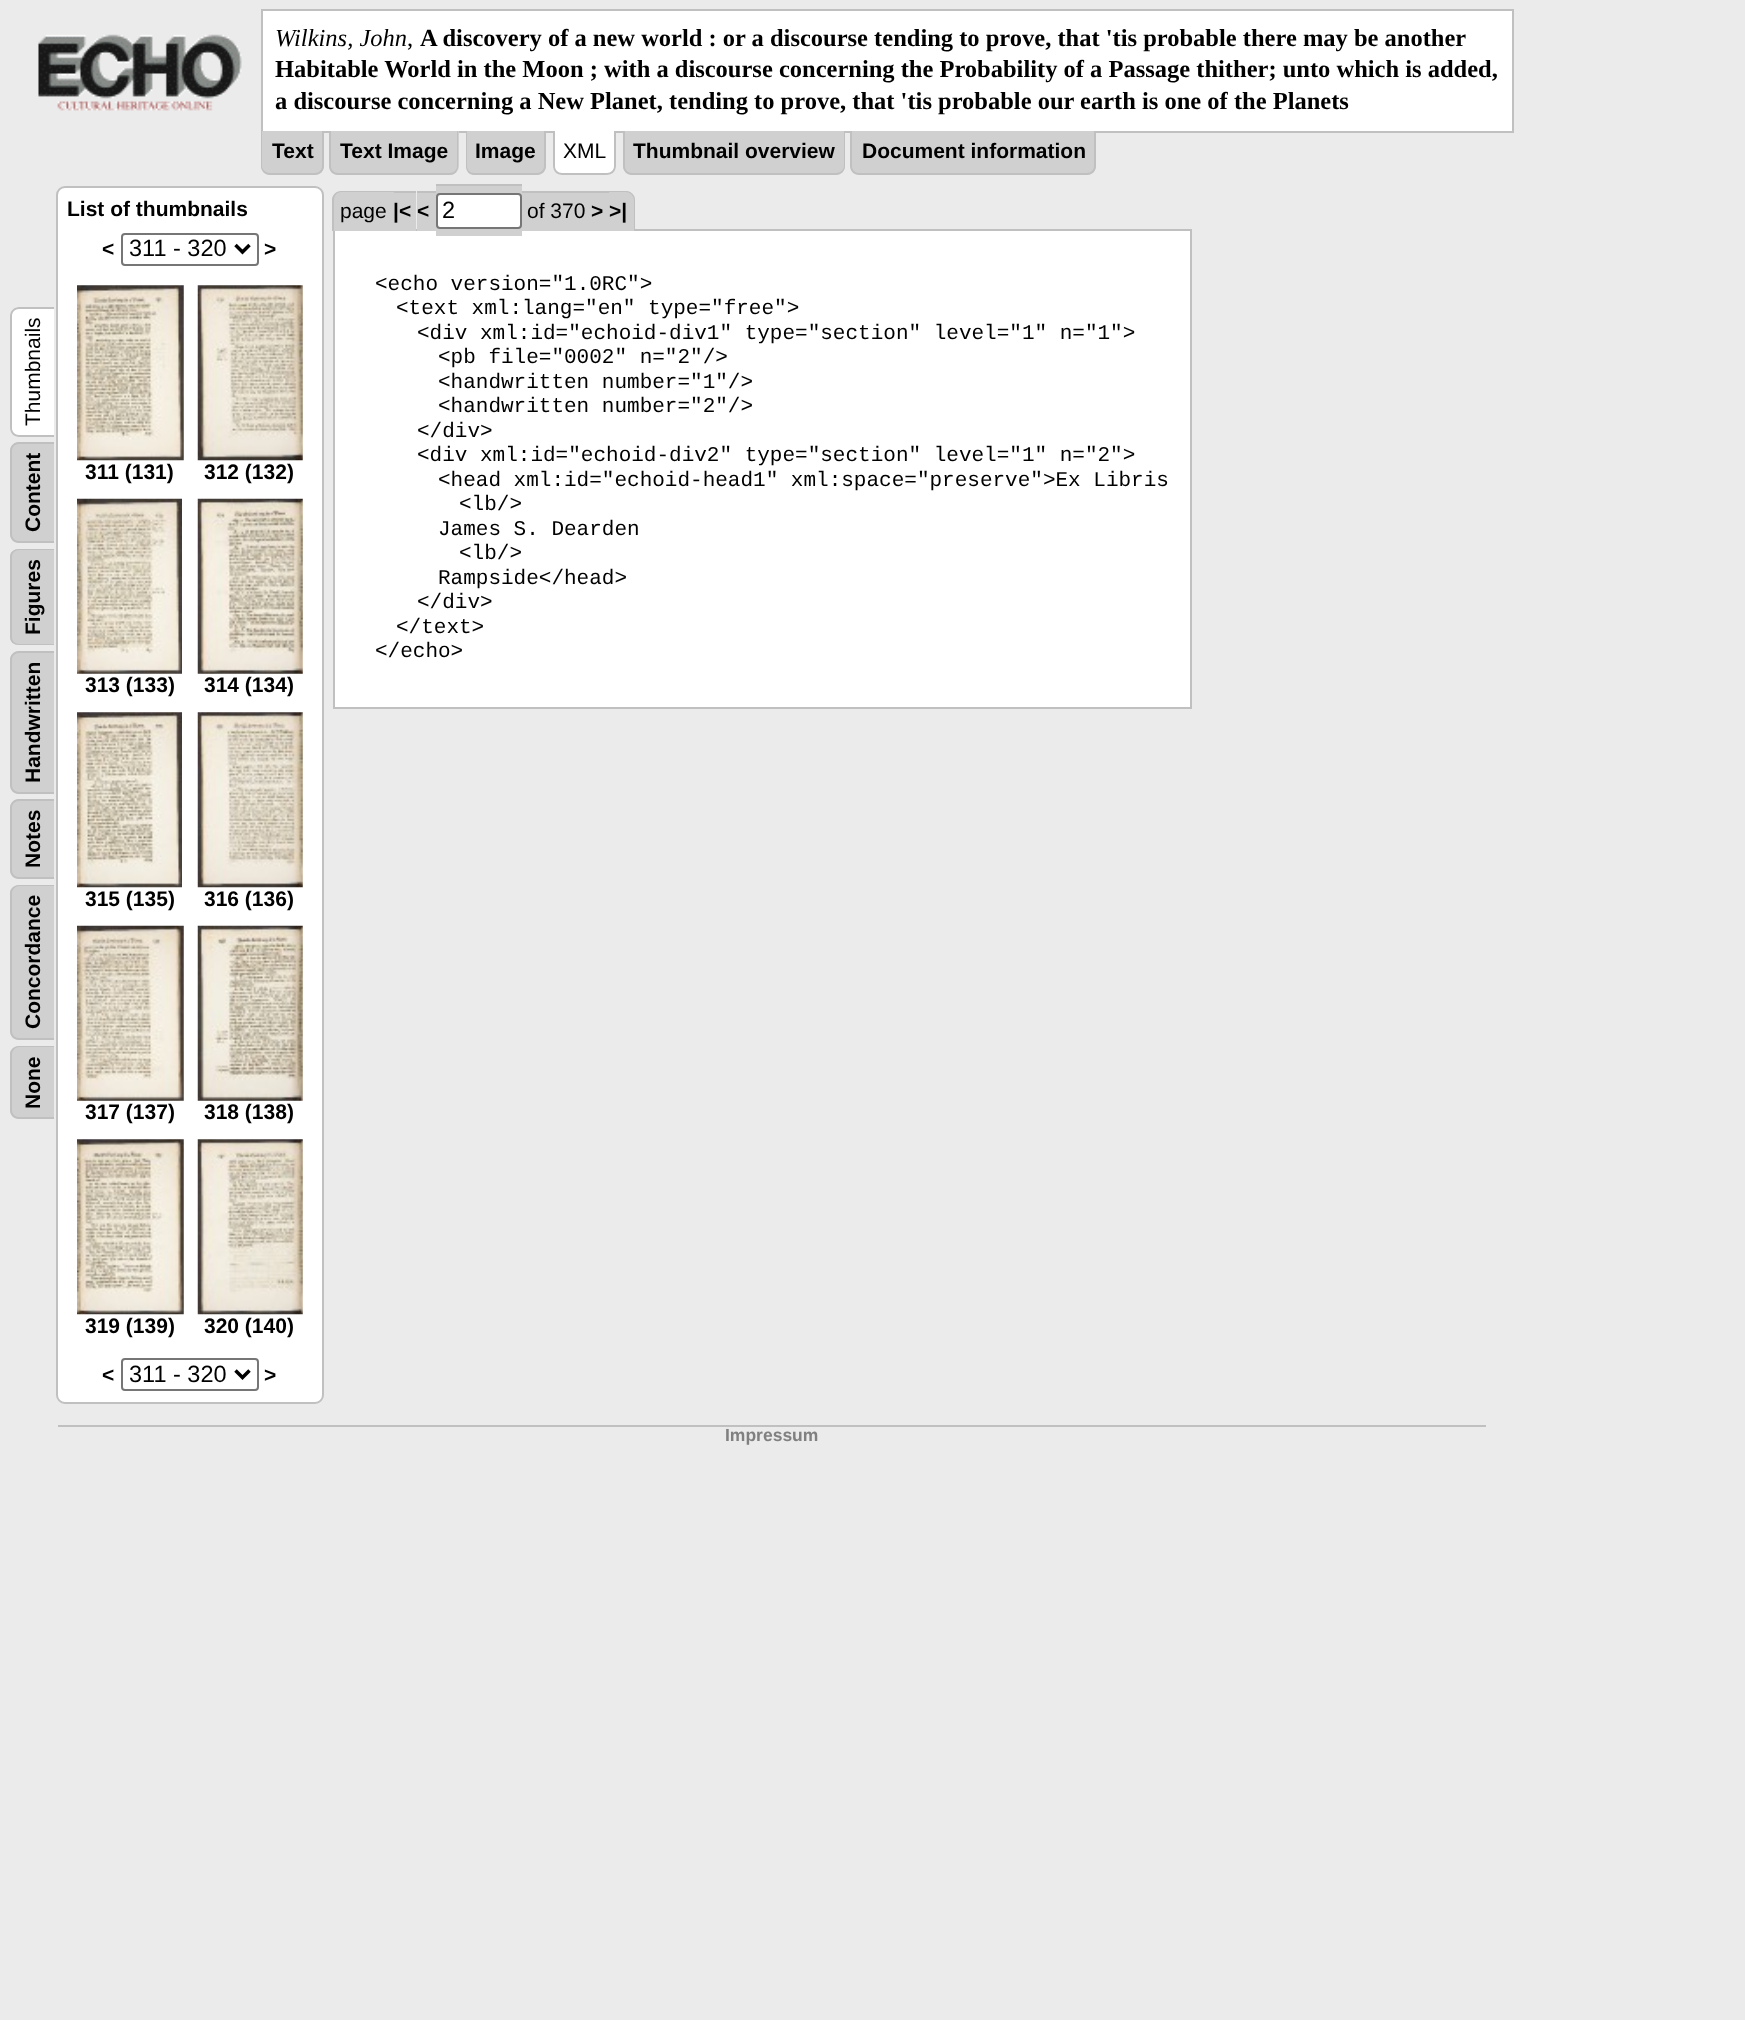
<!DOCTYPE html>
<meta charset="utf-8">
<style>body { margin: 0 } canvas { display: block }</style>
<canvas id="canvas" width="1745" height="2020"></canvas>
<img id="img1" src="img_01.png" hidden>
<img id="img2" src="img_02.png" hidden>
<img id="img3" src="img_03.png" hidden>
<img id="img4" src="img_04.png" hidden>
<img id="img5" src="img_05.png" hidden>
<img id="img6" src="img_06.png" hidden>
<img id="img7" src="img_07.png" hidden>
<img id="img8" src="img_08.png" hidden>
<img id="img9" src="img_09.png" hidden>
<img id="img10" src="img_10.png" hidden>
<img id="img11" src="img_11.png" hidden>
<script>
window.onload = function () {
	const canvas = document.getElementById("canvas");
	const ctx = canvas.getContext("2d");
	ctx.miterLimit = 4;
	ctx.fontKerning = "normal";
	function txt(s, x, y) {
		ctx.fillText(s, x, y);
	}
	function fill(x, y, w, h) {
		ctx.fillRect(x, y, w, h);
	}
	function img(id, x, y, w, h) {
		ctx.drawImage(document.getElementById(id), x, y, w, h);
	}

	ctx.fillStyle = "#EBEBEB";
	fill(0, 0, 1745, 2020);
	img("img1", 38, 34, 204, 77);
	ctx.fillStyle = "#FFFFFF";
	ctx.beginPath();
	ctx.rect(262, 10, 1251, 122);
	ctx.fill();
	ctx.strokeStyle = "#C0C0C0";
	ctx.lineWidth = 2;
	ctx.stroke();
	ctx.fillStyle = "#D0D0D0";
	ctx.beginPath();
	ctx.roundRect(261, 131, 63, 44, [0, 0, 9, 9]);
	ctx.fill();
	ctx.fillStyle = "#C0C0C0";
	ctx.beginPath();
	ctx.moveTo(261, 131);
	ctx.lineTo(324, 131);
	ctx.lineTo(324, 166);
	ctx.bezierCurveTo(324, 171, 320, 175, 315, 175);
	ctx.lineTo(270, 175);
	ctx.bezierCurveTo(265, 175, 261, 171, 261, 166);
	ctx.closePath();
	ctx.moveTo(262, 131);
	ctx.lineTo(322, 131);
	ctx.lineTo(322, 166);
	ctx.bezierCurveTo(322, 170, 319, 173, 315, 173);
	ctx.lineTo(270, 173);
	ctx.bezierCurveTo(266, 173, 262, 170, 262, 166);
	ctx.closePath();
	ctx.fill("evenodd");
	ctx.fillStyle = "#D0D0D0";
	ctx.beginPath();
	ctx.roundRect(329, 131, 130, 44, [0, 0, 9, 9]);
	ctx.fill();
	ctx.fillStyle = "#C0C0C0";
	ctx.beginPath();
	ctx.moveTo(329, 131);
	ctx.lineTo(458, 131);
	ctx.lineTo(458, 166);
	ctx.bezierCurveTo(458, 171, 455, 175, 450, 175);
	ctx.lineTo(338, 175);
	ctx.bezierCurveTo(333, 175, 329, 171, 329, 166);
	ctx.closePath();
	ctx.moveTo(331, 131);
	ctx.lineTo(457, 131);
	ctx.lineTo(457, 166);
	ctx.bezierCurveTo(457, 170, 454, 173, 450, 173);
	ctx.lineTo(338, 173);
	ctx.bezierCurveTo(334, 173, 331, 170, 331, 166);
	ctx.closePath();
	ctx.fill("evenodd");
	ctx.fillStyle = "#D0D0D0";
	ctx.beginPath();
	ctx.roundRect(466, 131, 80, 44, [0, 0, 9, 9]);
	ctx.fill();
	ctx.fillStyle = "#C0C0C0";
	ctx.beginPath();
	ctx.moveTo(466, 131);
	ctx.lineTo(546, 131);
	ctx.lineTo(546, 166);
	ctx.bezierCurveTo(546, 171, 542, 175, 537, 175);
	ctx.lineTo(474, 175);
	ctx.bezierCurveTo(469, 175, 466, 171, 466, 166);
	ctx.closePath();
	ctx.moveTo(467, 131);
	ctx.lineTo(544, 131);
	ctx.lineTo(544, 166);
	ctx.bezierCurveTo(544, 170, 541, 173, 537, 173);
	ctx.lineTo(474, 173);
	ctx.bezierCurveTo(470, 173, 467, 170, 467, 166);
	ctx.closePath();
	ctx.fill("evenodd");
	ctx.fillStyle = "#FFFFFF";
	ctx.beginPath();
	ctx.roundRect(553, 131, 63, 44, [0, 0, 9, 9]);
	ctx.fill();
	ctx.fillStyle = "#C0C0C0";
	ctx.beginPath();
	ctx.moveTo(553, 131);
	ctx.lineTo(616, 131);
	ctx.lineTo(616, 166);
	ctx.bezierCurveTo(616, 171, 612, 175, 607, 175);
	ctx.lineTo(562, 175);
	ctx.bezierCurveTo(557, 175, 553, 171, 553, 166);
	ctx.closePath();
	ctx.moveTo(555, 131);
	ctx.lineTo(614, 131);
	ctx.lineTo(614, 166);
	ctx.bezierCurveTo(614, 170, 611, 173, 607, 173);
	ctx.lineTo(562, 173);
	ctx.bezierCurveTo(558, 173, 555, 170, 555, 166);
	ctx.closePath();
	ctx.fill("evenodd");
	ctx.fillStyle = "#D0D0D0";
	ctx.beginPath();
	ctx.roundRect(623, 131, 222, 44, [0, 0, 9, 9]);
	ctx.fill();
	ctx.fillStyle = "#C0C0C0";
	ctx.beginPath();
	ctx.moveTo(623, 131);
	ctx.lineTo(845, 131);
	ctx.lineTo(845, 166);
	ctx.bezierCurveTo(845, 171, 841, 175, 836, 175);
	ctx.lineTo(632, 175);
	ctx.bezierCurveTo(627, 175, 623, 171, 623, 166);
	ctx.closePath();
	ctx.moveTo(625, 131);
	ctx.lineTo(844, 131);
	ctx.lineTo(844, 166);
	ctx.bezierCurveTo(844, 170, 840, 173, 836, 173);
	ctx.lineTo(632, 173);
	ctx.bezierCurveTo(628, 173, 625, 170, 625, 166);
	ctx.closePath();
	ctx.fill("evenodd");
	ctx.fillStyle = "#D0D0D0";
	ctx.beginPath();
	ctx.roundRect(851, 131, 245, 44, [0, 0, 9, 9]);
	ctx.fill();
	ctx.fillStyle = "#C0C0C0";
	ctx.beginPath();
	ctx.moveTo(850, 131);
	ctx.lineTo(1096, 131);
	ctx.lineTo(1096, 166);
	ctx.bezierCurveTo(1096, 171, 1092, 175, 1087, 175);
	ctx.lineTo(859, 175);
	ctx.bezierCurveTo(854, 175, 850, 171, 850, 166);
	ctx.closePath();
	ctx.moveTo(852, 131);
	ctx.lineTo(1094, 131);
	ctx.lineTo(1094, 166);
	ctx.bezierCurveTo(1094, 170, 1091, 173, 1087, 173);
	ctx.lineTo(859, 173);
	ctx.bezierCurveTo(855, 173, 852, 170, 852, 166);
	ctx.closePath();
	ctx.fill("evenodd");
	ctx.fillStyle = "#FFFFFF";
	ctx.beginPath();
	ctx.moveTo(10, 428);
	ctx.lineTo(10, 316);
	ctx.bezierCurveTo(10, 311, 14, 307, 19, 307);
	ctx.lineTo(54, 307);
	ctx.lineTo(54, 437);
	ctx.lineTo(19, 437);
	ctx.bezierCurveTo(14, 437, 10, 433, 10, 428);
	ctx.closePath();
	ctx.fill();
	ctx.fillStyle = "#C0C0C0";
	ctx.beginPath();
	ctx.moveTo(10, 428);
	ctx.lineTo(10, 316);
	ctx.bezierCurveTo(10, 311, 14, 307, 19, 307);
	ctx.lineTo(54, 307);
	ctx.lineTo(54, 437);
	ctx.lineTo(19, 437);
	ctx.bezierCurveTo(14, 437, 10, 433, 10, 428);
	ctx.closePath();
	ctx.moveTo(12, 428);
	ctx.lineTo(12, 316);
	ctx.bezierCurveTo(12, 312, 15, 309, 19, 309);
	ctx.lineTo(54, 309);
	ctx.lineTo(54, 435);
	ctx.lineTo(19, 435);
	ctx.bezierCurveTo(15, 435, 12, 432, 12, 428);
	ctx.closePath();
	ctx.fill("evenodd");
	ctx.fillStyle = "#D0D0D0";
	ctx.beginPath();
	ctx.moveTo(10, 534);
	ctx.lineTo(10, 451);
	ctx.bezierCurveTo(10, 446, 14, 442, 19, 442);
	ctx.lineTo(54, 442);
	ctx.lineTo(54, 543);
	ctx.lineTo(19, 543);
	ctx.bezierCurveTo(14, 543, 10, 539, 10, 534);
	ctx.closePath();
	ctx.fill();
	ctx.fillStyle = "#C0C0C0";
	ctx.beginPath();
	ctx.moveTo(10, 534);
	ctx.lineTo(10, 451);
	ctx.bezierCurveTo(10, 446, 14, 442, 19, 442);
	ctx.lineTo(54, 442);
	ctx.lineTo(54, 543);
	ctx.lineTo(19, 543);
	ctx.bezierCurveTo(14, 543, 10, 539, 10, 534);
	ctx.closePath();
	ctx.moveTo(12, 534);
	ctx.lineTo(12, 451);
	ctx.bezierCurveTo(12, 447, 15, 444, 19, 444);
	ctx.lineTo(54, 444);
	ctx.lineTo(54, 541);
	ctx.lineTo(19, 541);
	ctx.bezierCurveTo(15, 541, 12, 538, 12, 534);
	ctx.closePath();
	ctx.fill("evenodd");
	ctx.fillStyle = "#D0D0D0";
	ctx.beginPath();
	ctx.moveTo(10, 637);
	ctx.lineTo(10, 557);
	ctx.bezierCurveTo(10, 552, 14, 549, 19, 549);
	ctx.lineTo(54, 549);
	ctx.lineTo(54, 645);
	ctx.lineTo(19, 645);
	ctx.bezierCurveTo(14, 645, 10, 642, 10, 637);
	ctx.closePath();
	ctx.fill();
	ctx.fillStyle = "#C0C0C0";
	ctx.beginPath();
	ctx.moveTo(10, 637);
	ctx.lineTo(10, 557);
	ctx.bezierCurveTo(10, 552, 14, 549, 19, 549);
	ctx.lineTo(54, 549);
	ctx.lineTo(54, 645);
	ctx.lineTo(19, 645);
	ctx.bezierCurveTo(14, 645, 10, 642, 10, 637);
	ctx.closePath();
	ctx.moveTo(12, 637);
	ctx.lineTo(12, 557);
	ctx.bezierCurveTo(12, 553, 15, 550, 19, 550);
	ctx.lineTo(54, 550);
	ctx.lineTo(54, 644);
	ctx.lineTo(19, 644);
	ctx.bezierCurveTo(15, 644, 12, 641, 12, 637);
	ctx.closePath();
	ctx.fill("evenodd");
	ctx.fillStyle = "#D0D0D0";
	ctx.beginPath();
	ctx.moveTo(10, 785);
	ctx.lineTo(10, 660);
	ctx.bezierCurveTo(10, 655, 14, 651, 19, 651);
	ctx.lineTo(54, 651);
	ctx.lineTo(54, 794);
	ctx.lineTo(19, 794);
	ctx.bezierCurveTo(14, 794, 10, 790, 10, 785);
	ctx.closePath();
	ctx.fill();
	ctx.fillStyle = "#C0C0C0";
	ctx.beginPath();
	ctx.moveTo(10, 785);
	ctx.lineTo(10, 660);
	ctx.bezierCurveTo(10, 655, 14, 651, 19, 651);
	ctx.lineTo(54, 651);
	ctx.lineTo(54, 794);
	ctx.lineTo(19, 794);
	ctx.bezierCurveTo(14, 794, 10, 790, 10, 785);
	ctx.closePath();
	ctx.moveTo(12, 785);
	ctx.lineTo(12, 660);
	ctx.bezierCurveTo(12, 656, 15, 653, 19, 653);
	ctx.lineTo(54, 653);
	ctx.lineTo(54, 792);
	ctx.lineTo(19, 792);
	ctx.bezierCurveTo(15, 792, 12, 789, 12, 785);
	ctx.closePath();
	ctx.fill("evenodd");
	ctx.fillStyle = "#D0D0D0";
	ctx.beginPath();
	ctx.moveTo(10, 870);
	ctx.lineTo(10, 808);
	ctx.bezierCurveTo(10, 803, 14, 799, 19, 799);
	ctx.lineTo(54, 799);
	ctx.lineTo(54, 879);
	ctx.lineTo(19, 879);
	ctx.bezierCurveTo(14, 879, 10, 875, 10, 870);
	ctx.closePath();
	ctx.fill();
	ctx.fillStyle = "#C0C0C0";
	ctx.beginPath();
	ctx.moveTo(10, 870);
	ctx.lineTo(10, 808);
	ctx.bezierCurveTo(10, 803, 14, 799, 19, 799);
	ctx.lineTo(54, 799);
	ctx.lineTo(54, 879);
	ctx.lineTo(19, 879);
	ctx.bezierCurveTo(14, 879, 10, 875, 10, 870);
	ctx.closePath();
	ctx.moveTo(12, 870);
	ctx.lineTo(12, 808);
	ctx.bezierCurveTo(12, 804, 15, 801, 19, 801);
	ctx.lineTo(54, 801);
	ctx.lineTo(54, 877);
	ctx.lineTo(19, 877);
	ctx.bezierCurveTo(15, 877, 12, 874, 12, 870);
	ctx.closePath();
	ctx.fill("evenodd");
	ctx.fillStyle = "#D0D0D0";
	ctx.beginPath();
	ctx.moveTo(10, 1031);
	ctx.lineTo(10, 893);
	ctx.bezierCurveTo(10, 889, 14, 885, 19, 885);
	ctx.lineTo(54, 885);
	ctx.lineTo(54, 1040);
	ctx.lineTo(19, 1040);
	ctx.bezierCurveTo(14, 1040, 10, 1036, 10, 1031);
	ctx.closePath();
	ctx.fill();
	ctx.fillStyle = "#C0C0C0";
	ctx.beginPath();
	ctx.moveTo(10, 1031);
	ctx.lineTo(10, 893);
	ctx.bezierCurveTo(10, 889, 14, 885, 19, 885);
	ctx.lineTo(54, 885);
	ctx.lineTo(54, 1040);
	ctx.lineTo(19, 1040);
	ctx.bezierCurveTo(14, 1040, 10, 1036, 10, 1031);
	ctx.closePath();
	ctx.moveTo(12, 1031);
	ctx.lineTo(12, 893);
	ctx.bezierCurveTo(12, 890, 15, 886, 19, 886);
	ctx.lineTo(54, 886);
	ctx.lineTo(54, 1038);
	ctx.lineTo(19, 1038);
	ctx.bezierCurveTo(15, 1038, 12, 1035, 12, 1031);
	ctx.closePath();
	ctx.fill("evenodd");
	ctx.fillStyle = "#D0D0D0";
	ctx.beginPath();
	ctx.moveTo(10, 1110);
	ctx.lineTo(10, 1054);
	ctx.bezierCurveTo(10, 1050, 14, 1046, 19, 1046);
	ctx.lineTo(54, 1046);
	ctx.lineTo(54, 1119);
	ctx.lineTo(19, 1119);
	ctx.bezierCurveTo(14, 1119, 10, 1115, 10, 1110);
	ctx.closePath();
	ctx.fill();
	ctx.fillStyle = "#C0C0C0";
	ctx.beginPath();
	ctx.moveTo(10, 1110);
	ctx.lineTo(10, 1054);
	ctx.bezierCurveTo(10, 1050, 14, 1046, 19, 1046);
	ctx.lineTo(54, 1046);
	ctx.lineTo(54, 1119);
	ctx.lineTo(19, 1119);
	ctx.bezierCurveTo(14, 1119, 10, 1115, 10, 1110);
	ctx.closePath();
	ctx.moveTo(12, 1110);
	ctx.lineTo(12, 1054);
	ctx.bezierCurveTo(12, 1051, 15, 1047, 19, 1047);
	ctx.lineTo(54, 1047);
	ctx.lineTo(54, 1117);
	ctx.lineTo(19, 1117);
	ctx.bezierCurveTo(15, 1117, 12, 1114, 12, 1110);
	ctx.closePath();
	ctx.fill("evenodd");
	ctx.fillStyle = "#FFFFFF";
	ctx.beginPath();
	ctx.roundRect(57, 187, 266, 1216, 8);
	ctx.fill();
	ctx.stroke();
	ctx.beginPath();
	ctx.roundRect(122, 234, 136, 31, 3);
	ctx.strokeStyle = "#767676";
	ctx.stroke();
	ctx.beginPath();
	ctx.moveTo(235.5, 245);
	ctx.lineTo(242.5, 252);
	ctx.lineTo(249.5, 245);
	ctx.strokeStyle = "#000000";
	ctx.lineWidth = 3.5;
	ctx.stroke();
	img("img2", 77, 285, 107, 176);
	img("img3", 197, 285, 106, 176);
	img("img4", 77, 498, 105, 176);
	img("img5", 197, 498, 106, 176);
	img("img6", 77, 712, 105, 176);
	img("img7", 197, 712, 106, 176);
	img("img8", 77, 925, 107, 176);
	img("img9", 197, 925, 106, 176);
	img("img10", 77, 1139, 107, 176);
	img("img11", 197, 1139, 106, 176);
	ctx.beginPath();
	ctx.roundRect(122, 1359, 136, 31, 3);
	ctx.strokeStyle = "#767676";
	ctx.lineWidth = 2;
	ctx.stroke();
	ctx.beginPath();
	ctx.moveTo(235.5, 1370.5);
	ctx.lineTo(242.5, 1377.5);
	ctx.lineTo(249.5, 1370.5);
	ctx.strokeStyle = "#000000";
	ctx.lineWidth = 3.5;
	ctx.stroke();
	ctx.beginPath();
	ctx.rect(334, 230, 857, 478);
	ctx.fill();
	ctx.strokeStyle = "#C0C0C0";
	ctx.lineWidth = 2;
	ctx.stroke();
	ctx.fillStyle = "#D0D0D0";
	ctx.beginPath();
	ctx.roundRect(333, 191, 61, 40, [9, 0, 0, 0]);
	ctx.fill();
	ctx.fillStyle = "#C0C0C0";
	ctx.beginPath();
	ctx.moveTo(341, 191);
	ctx.lineTo(394, 191);
	ctx.lineTo(394, 231);
	ctx.lineTo(332, 231);
	ctx.lineTo(332, 200);
	ctx.bezierCurveTo(332, 195, 336, 191, 341, 191);
	ctx.closePath();
	ctx.moveTo(341, 192);
	ctx.lineTo(394, 192);
	ctx.lineTo(394, 231);
	ctx.lineTo(334, 231);
	ctx.lineTo(334, 200);
	ctx.bezierCurveTo(334, 196, 337, 192, 341, 192);
	ctx.closePath();
	ctx.fill("evenodd");
	ctx.fillStyle = "#D0D0D0";
	fill(394, 193, 17, 38);
	ctx.fillStyle = "#C0C0C0";
	fill(394, 191, 17, 2);
	ctx.fillStyle = "#D0D0D0";
	fill(411, 191, 5, 40);
	ctx.fillStyle = "#C0C0C0";
	fill(411, 191, 5, 2);
	ctx.fillStyle = "#D0D0D0";
	fill(417, 193, 12, 38);
	ctx.fillStyle = "#C0C0C0";
	fill(417, 191, 12, 2);
	ctx.fillStyle = "#D0D0D0";
	fill(429, 191, 7, 40);
	ctx.fillStyle = "#C0C0C0";
	fill(429, 191, 7, 2);
	ctx.fillStyle = "#D0D0D0";
	fill(436, 186, 86, 50);
	ctx.fillStyle = "#C0C0C0";
	fill(436, 184, 86, 2);
	ctx.fillStyle = "#D0D0D0";
	fill(522, 191, 5, 40);
	ctx.fillStyle = "#C0C0C0";
	fill(522, 191, 82, 2);
	ctx.fillStyle = "#D0D0D0";
	fill(527, 193, 77, 38);
	fill(604, 191, 5, 40);
	ctx.fillStyle = "#C0C0C0";
	fill(604, 191, 5, 2);
	ctx.fillStyle = "#D0D0D0";
	ctx.beginPath();
	ctx.roundRect(609, 191, 26, 40, [0, 9, 0, 0]);
	ctx.fill();
	ctx.fillStyle = "#C0C0C0";
	ctx.beginPath();
	ctx.moveTo(609, 191);
	ctx.lineTo(626, 191);
	ctx.bezierCurveTo(631, 191, 635, 195, 635, 200);
	ctx.lineTo(635, 231);
	ctx.lineTo(609, 231);
	ctx.closePath();
	ctx.moveTo(609, 192);
	ctx.lineTo(626, 192);
	ctx.bezierCurveTo(630, 192, 634, 196, 634, 200);
	ctx.lineTo(634, 231);
	ctx.lineTo(609, 231);
	ctx.closePath();
	ctx.fill("evenodd");
	ctx.fillStyle = "#FFFFFF";
	ctx.beginPath();
	ctx.roundRect(437, 194, 84, 34, 3);
	ctx.fill();
	ctx.strokeStyle = "#767676";
	ctx.stroke();
	ctx.fillStyle = "#C0C0C0";
	fill(58, 1425, 1428, 2);
	ctx.font = "italic 24.5px Liberation Serif";
	ctx.fillStyle = "#000000";
	txt("Wilkins, John", 275, 46);
	ctx.font = "24.5px Liberation Serif";
	txt(",", 407, 46);
	ctx.font = "bold 24.5px Liberation Serif";
	txt("A discovery of a new world : or a discourse tending to prove, that 'tis probable there may be another", 420, 46);
	txt("Habitable World in the Moon ; with a discourse concerning the Probability of a Passage thither; unto which is added,", 275, 77);
	txt("a discourse concerning a New Planet, tending to prove, that 'tis probable our earth is one of the Planets", 275, 109);
	ctx.font = "bold 21px Liberation Sans";
	txt("Text", 272, 158);
	txt("Text Image", 340, 158);
	txt("Image", 475, 158);
	ctx.font = "21px Liberation Sans";
	txt("XML", 563, 158);
	ctx.font = "bold 21px Liberation Sans";
	txt("Thumbnail overview", 633, 158);
	txt("Document information", 862, 158);
	ctx.font = "21px Liberation Sans";
	ctx.save();
	ctx.translate(40, 426);
	ctx.rotate(-90 * Math.PI / 180);
	ctx.fillText("Thumbnails", 0, 0);
	ctx.restore();
	ctx.font = "bold 21px Liberation Sans";
	ctx.save();
	ctx.translate(40, 532);
	ctx.rotate(-90 * Math.PI / 180);
	ctx.fillText("Content", 0, 0);
	ctx.restore();
	ctx.save();
	ctx.translate(40, 635);
	ctx.rotate(-90 * Math.PI / 180);
	ctx.fillText("Figures", 0, 0);
	ctx.restore();
	ctx.save();
	ctx.translate(40, 783);
	ctx.rotate(-90 * Math.PI / 180);
	ctx.fillText("Handwritten", 0, 0);
	ctx.restore();
	ctx.save();
	ctx.translate(40, 868);
	ctx.rotate(-90 * Math.PI / 180);
	ctx.fillText("Notes", 0, 0);
	ctx.restore();
	ctx.save();
	ctx.translate(40, 1029);
	ctx.rotate(-90 * Math.PI / 180);
	ctx.fillText("Concordance", 0, 0);
	ctx.restore();
	ctx.save();
	ctx.translate(40, 1109);
	ctx.rotate(-90 * Math.PI / 180);
	ctx.fillText("None", 0, 0);
	ctx.restore();
	txt("List of thumbnails", 67, 216);
	txt("<", 102, 256);
	ctx.save();
	ctx.beginPath();
	ctx.rect(130, 235, 99, 29);
	ctx.clip();
	ctx.font = "23.5px Liberation Sans";
	txt("311 - 320", 129, 256);
	ctx.restore();
	txt(">", 264, 256);
	txt("311 (131)", 85, 479);
	txt("312 (132)", 204, 479);
	txt("313 (133)", 85, 692);
	txt("314 (134)", 204, 692);
	txt("315 (135)", 85, 906);
	txt("316 (136)", 204, 906);
	txt("317 (137)", 85, 1119);
	txt("318 (138)", 204, 1119);
	txt("319 (139)", 85, 1333);
	txt("320 (140)", 204, 1333);
	txt("<", 102, 1382);
	ctx.save();
	ctx.beginPath();
	ctx.rect(130, 1360, 99, 30);
	ctx.clip();
	ctx.font = "23.5px Liberation Sans";
	txt("311 - 320", 129, 1382);
	ctx.restore();
	txt(">", 264, 1382);
	ctx.font = "21px Liberation Sans";
	txt("page", 340, 218);
	ctx.font = "bold 21px Liberation Sans";
	txt("|< <", 393, 218);
	ctx.font = "23.5px Liberation Sans";
	txt("2", 442, 218);
	ctx.font = "21px Liberation Sans";
	txt("of 370", 527, 218);
	ctx.font = "bold 21px Liberation Sans";
	txt("> >|", 591, 218);
	ctx.font = "21px Liberation Mono";
	txt("<echo version=\"1.0RC\">", 375, 290);
	txt("<text xml:lang=\"en\" type=\"free\">", 396, 314);
	txt("<div xml:id=\"echoid-div1\" type=\"section\" level=\"1\" n=\"1\">", 417, 339);
	txt("<pb file=\"0002\" n=\"2\"/>", 438, 363);
	txt("<handwritten number=\"1\"/>", 438, 388);
	txt("<handwritten number=\"2\"/>", 438, 412);
	txt("<\/div>", 417, 437);
	txt("<div xml:id=\"echoid-div2\" type=\"section\" level=\"1\" n=\"2\">", 417, 461);
	txt("<head xml:id=\"echoid-head1\" xml:space=\"preserve\">Ex Libris", 438, 486);
	txt("<lb/>", 459, 510);
	txt("James S. Dearden", 438, 535);
	txt("<lb/>", 459, 559);
	txt("Rampside<\/head>", 438, 584);
	txt("<\/div>", 417, 608);
	txt("<\/text>", 396, 633);
	txt("<\/echo>", 375, 657);
	ctx.font = "bold 17.5px Liberation Sans";
	ctx.fillStyle = "#808080";
	txt("Impressum", 725, 1441);
};
</script>
